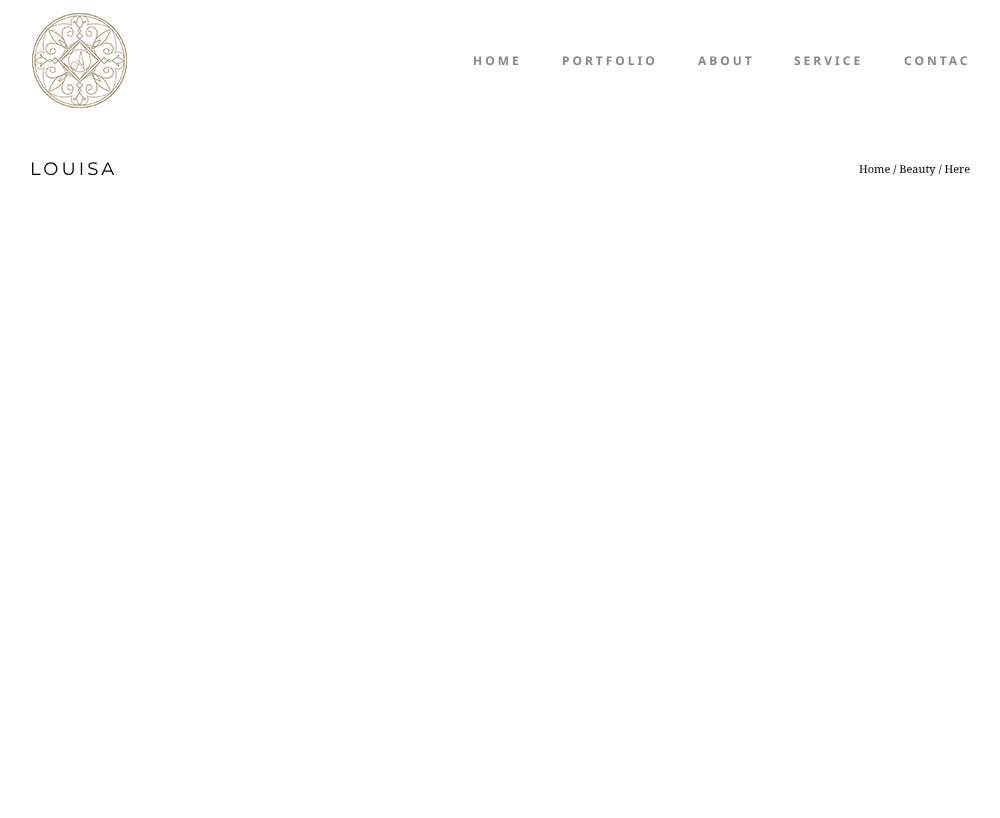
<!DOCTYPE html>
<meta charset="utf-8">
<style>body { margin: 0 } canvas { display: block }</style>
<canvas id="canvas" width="1000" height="818"></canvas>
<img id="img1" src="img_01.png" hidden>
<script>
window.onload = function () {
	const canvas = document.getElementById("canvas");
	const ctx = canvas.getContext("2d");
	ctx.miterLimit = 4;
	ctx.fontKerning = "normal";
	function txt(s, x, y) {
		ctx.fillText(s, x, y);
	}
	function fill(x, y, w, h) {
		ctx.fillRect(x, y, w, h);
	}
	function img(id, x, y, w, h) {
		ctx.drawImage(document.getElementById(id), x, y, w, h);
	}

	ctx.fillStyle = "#FFFFFF";
	fill(0, 0, 1000, 818);
	img("img1", 32, 13, 95, 95);
	ctx.letterSpacing = "3px";
	ctx.font = "bold 12px Noto Sans";
	ctx.fillStyle = "#888888";
	txt("HOME", 473, 65);
	txt("PORTFOLIO", 562, 65);
	txt("ABOUT", 698, 65);
	txt("SERVICE", 794, 65);
	txt("CONTAC", 904, 65);
	ctx.font = "100 18px Montserrat";
	ctx.fillStyle = "#000000";
	txt("LOUISA", 30, 175);
	ctx.letterSpacing = "0px";
	ctx.font = "11px Noto Serif";
	txt("Home / Beauty / Here", 859, 173);
};
</script>
